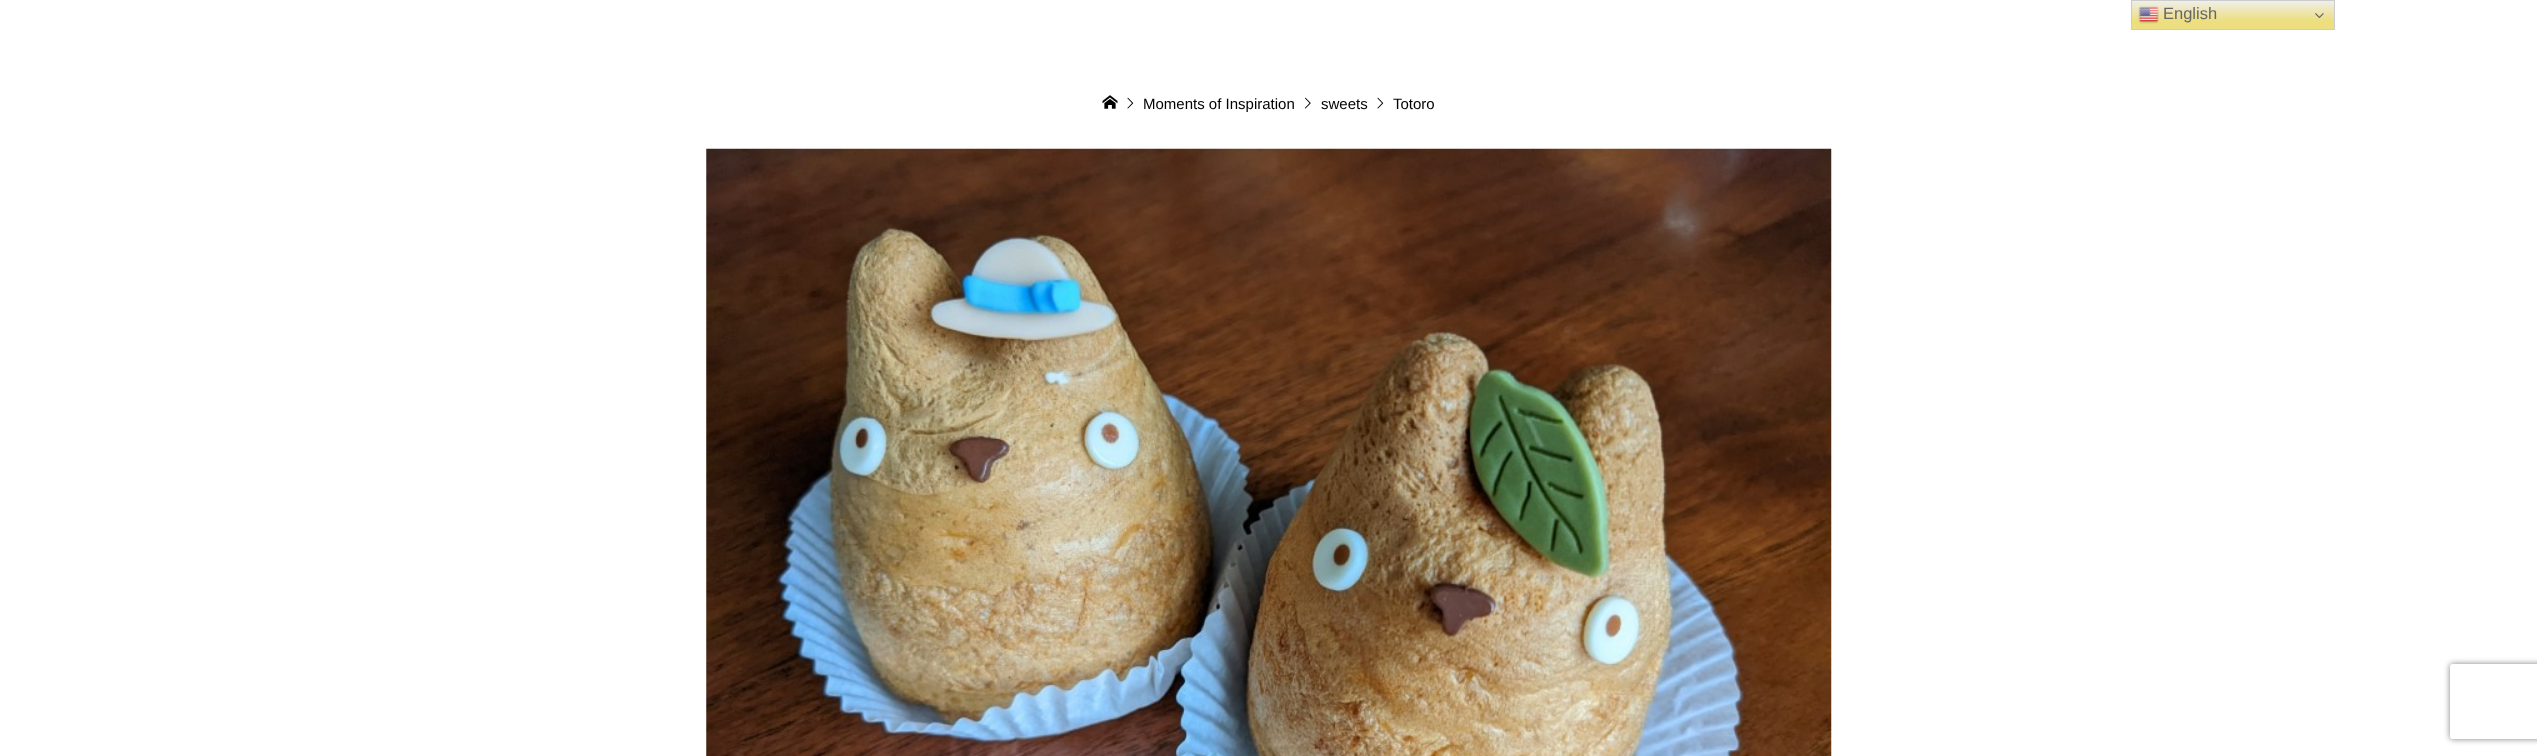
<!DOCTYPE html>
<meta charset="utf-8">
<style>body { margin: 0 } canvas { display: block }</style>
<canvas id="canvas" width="2537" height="756"></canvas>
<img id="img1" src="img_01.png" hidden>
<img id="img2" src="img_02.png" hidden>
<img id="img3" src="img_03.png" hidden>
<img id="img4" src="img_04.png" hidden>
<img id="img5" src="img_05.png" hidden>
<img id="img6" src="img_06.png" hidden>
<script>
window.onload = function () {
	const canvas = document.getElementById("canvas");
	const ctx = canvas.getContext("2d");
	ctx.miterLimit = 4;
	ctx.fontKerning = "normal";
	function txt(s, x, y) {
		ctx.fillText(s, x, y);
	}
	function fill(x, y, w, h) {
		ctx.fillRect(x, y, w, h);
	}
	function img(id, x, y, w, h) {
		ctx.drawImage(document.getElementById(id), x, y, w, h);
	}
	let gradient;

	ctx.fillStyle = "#FFFFFF";
	fill(0, 0, 2537, 756);
	gradient = ctx.createLinearGradient(2233, 0, 2233, 30);
	gradient.addColorStop(0, "#EFEFEF");
	gradient.addColorStop(0.7, "#EDDE80");
	ctx.fillStyle = gradient;
	fill(2132, 1, 202, 28);
	ctx.strokeStyle = "#CCCCCC";
	ctx.strokeRect(2131.5, 0.5, 203, 29);
	img("img1", 2138, 6, 21, 18);
	img("img2", 2315, 13, 9, 6);
	img("img3", 1102, 95, 16, 14);
	img("img4", 1127, 97, 7, 12);
	img("img5", 1305, 97, 6, 12);
	img("img4", 1377, 97, 7, 12);
	img("img6", 706, 148, 1126, 608);
	ctx.save();
	ctx.beginPath();
	ctx.moveTo(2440, 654);
	ctx.lineTo(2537, 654);
	ctx.lineTo(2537, 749);
	ctx.lineTo(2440, 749);
	ctx.closePath();
	ctx.moveTo(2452.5, 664);
	ctx.lineTo(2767.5, 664);
	ctx.bezierCurveTo(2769, 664, 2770, 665, 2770, 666.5);
	ctx.lineTo(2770, 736.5);
	ctx.bezierCurveTo(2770, 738, 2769, 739, 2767.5, 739);
	ctx.lineTo(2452.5, 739);
	ctx.bezierCurveTo(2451, 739, 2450, 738, 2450, 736.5);
	ctx.lineTo(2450, 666.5);
	ctx.bezierCurveTo(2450, 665, 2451, 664, 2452.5, 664);
	ctx.closePath();
	ctx.clip("evenodd");
	ctx.fillStyle = "#808080";
	ctx.filter = "blur(3px)";
	ctx.beginPath();
	ctx.roundRect(2450, 664, 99, 75, 2.5);
	ctx.fill();
	ctx.filter = "none";
	ctx.restore();
	ctx.font = "16.5px Liberation Sans";
	ctx.fillStyle = "#666666";
	txt("English", 2163, 19);
	ctx.font = "15px Liberation Sans";
	ctx.fillStyle = "#000000";
	txt("Moments of Inspiration", 1143, 109);
	txt("sweets", 1321, 109);
	txt("Totoro", 1393, 109);
};
</script>
